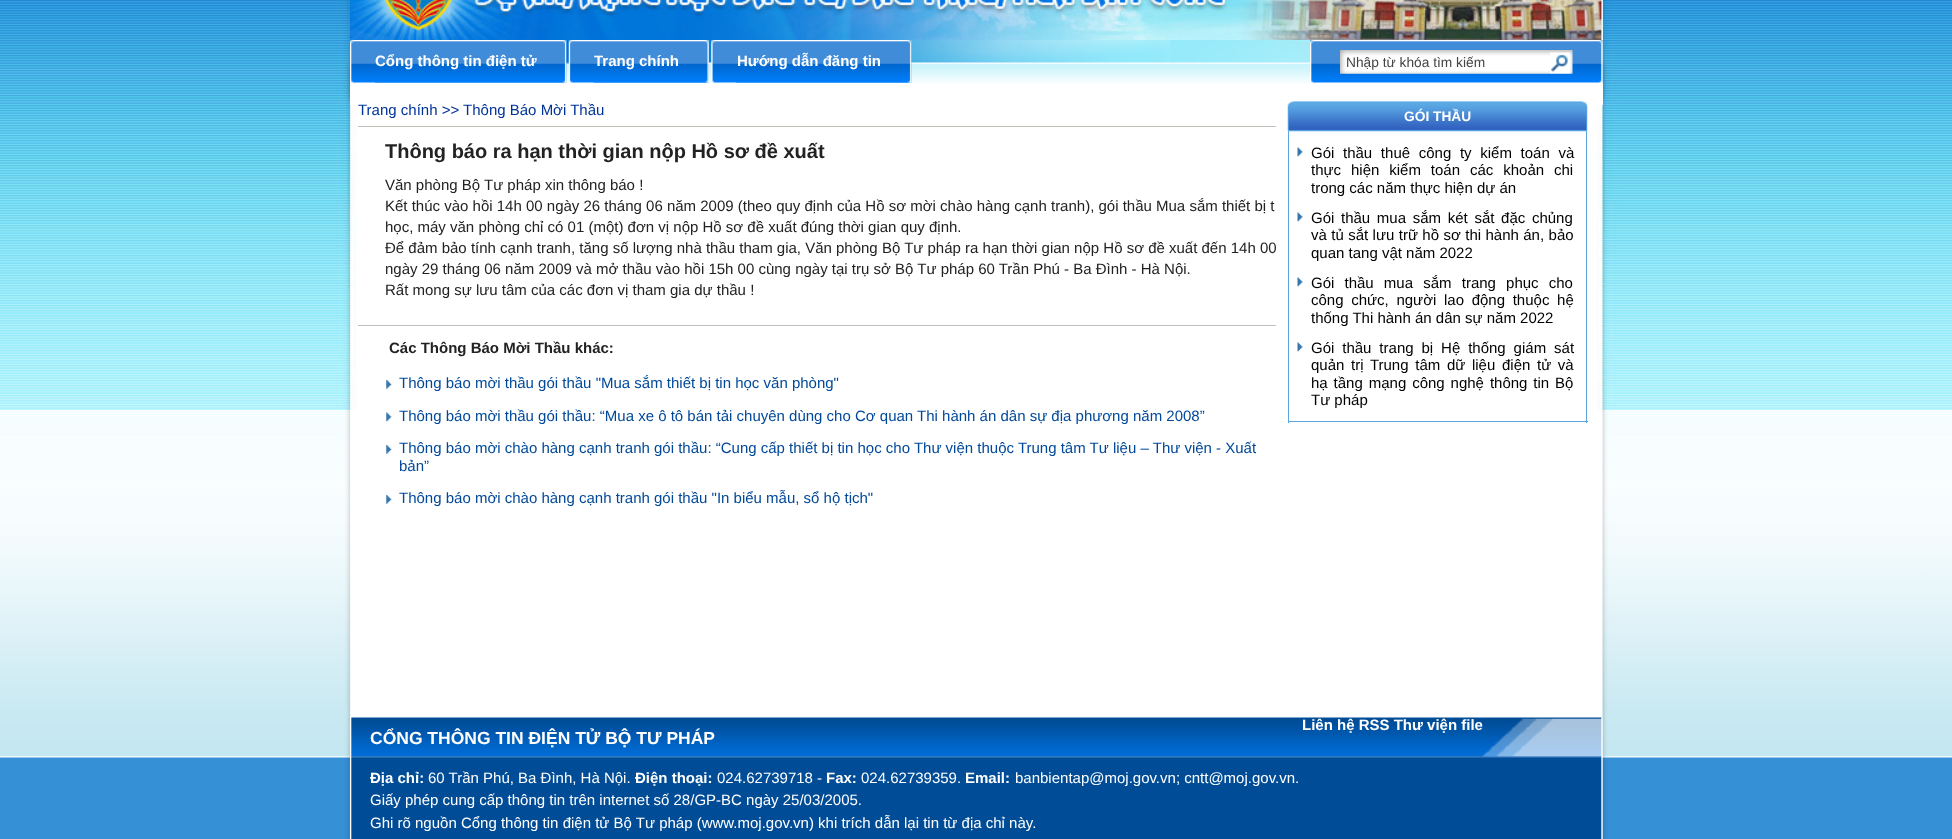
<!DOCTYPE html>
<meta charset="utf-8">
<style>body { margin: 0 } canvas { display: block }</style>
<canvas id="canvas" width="1952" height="839"></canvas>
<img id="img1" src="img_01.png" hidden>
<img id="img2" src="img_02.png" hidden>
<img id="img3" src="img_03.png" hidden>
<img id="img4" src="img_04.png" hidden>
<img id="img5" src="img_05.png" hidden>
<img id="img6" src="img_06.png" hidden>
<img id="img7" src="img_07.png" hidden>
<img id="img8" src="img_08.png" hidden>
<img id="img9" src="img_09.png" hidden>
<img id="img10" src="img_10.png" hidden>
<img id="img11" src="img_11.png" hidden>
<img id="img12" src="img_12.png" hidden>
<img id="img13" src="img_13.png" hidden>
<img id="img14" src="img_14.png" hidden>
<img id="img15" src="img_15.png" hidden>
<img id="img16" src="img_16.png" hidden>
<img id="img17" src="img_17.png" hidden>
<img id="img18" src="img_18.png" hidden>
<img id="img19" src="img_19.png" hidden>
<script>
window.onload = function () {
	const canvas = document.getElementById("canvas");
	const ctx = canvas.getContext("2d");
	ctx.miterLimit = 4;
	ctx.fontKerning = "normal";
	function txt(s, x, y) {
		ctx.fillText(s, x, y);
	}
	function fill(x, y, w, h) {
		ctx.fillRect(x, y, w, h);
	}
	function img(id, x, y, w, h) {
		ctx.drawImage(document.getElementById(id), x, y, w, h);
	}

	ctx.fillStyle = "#FFFFFF";
	fill(0, 0, 1952, 839);
	img("img1", 0, 0, 1952, 410);
	img("img2", 0, 410, 1952, 429);
	fill(350, 0, 1253, 105);
	img("img3", 350, 0, 1253, 40);
	img("img4", 350, 40, 1253, 44);
	img("img5", 350, 40, 217, 43);
	img("img6", 375, 40, 192, 43);
	img("img7", 568, 40, 141, 43);
	img("img8", 593, 40, 116, 43);
	img("img9", 711, 40, 201, 43);
	img("img10", 736, 40, 176, 43);
	img("img11", 1310, 40, 293, 44);
	img("img12", 1598, 40, 5, 43);
	img("img13", 1340, 50, 210, 24);
	img("img14", 1550, 50, 23, 24);
	ctx.fillStyle = "#C3C0B9";
	fill(358, 126, 918, 1);
	ctx.fillStyle = "#C0C0C0";
	fill(358, 325, 918, 1);
	img("img15", 386, 380, 6, 9);
	img("img16", 386, 412, 6, 10);
	img("img15", 386, 445, 6, 9);
	img("img15", 386, 495, 6, 9);
	img("img17", 1287, 101, 301, 31);
	ctx.fillStyle = "#5AA6E3";
	fill(1586, 131, 1, 292);
	fill(1288, 421, 300, 1);
	fill(1288, 131, 1, 292);
	img("img18", 1297, 147, 6, 10);
	img("img18", 1297, 212, 6, 10);
	img("img18", 1297, 277, 6, 10);
	img("img18", 1297, 342, 6, 10);
	img("img19", 350, 717, 1253, 122);
	ctx.font = "bold 15px Liberation Sans";
	ctx.fillStyle = "#FFFFFF";
	txt("Cổng thông tin điện tử", 375, 66);
	txt("Trang chính", 594, 66);
	txt("Hướng dẫn đăng tin", 737, 66);
	ctx.font = "13.75px Liberation Sans";
	ctx.fillStyle = "#444444";
	txt("Nhập từ khóa tìm kiếm", 1346, 67);
	ctx.font = "15px Liberation Sans";
	ctx.fillStyle = "#003399";
	txt("Trang chính >> Thông Báo Mời Thầu", 358, 115);
	ctx.font = "bold 20px Liberation Sans";
	ctx.fillStyle = "#222222";
	txt("Thông báo ra hạn thời gian nộp Hồ sơ đề xuất", 385, 158);
	ctx.font = "15px Liberation Sans";
	txt("Văn phòng Bộ Tư pháp xin thông báo !", 385, 190);
	txt("Kết thúc vào hồi 14h 00 ngày 26 tháng 06 năm 2009 (theo quy định của Hồ sơ mời chào hàng cạnh tranh), gói thầu Mua sắm thiết bị t", 385, 211);
	txt("học, máy văn phòng chỉ có 01 (một) đơn vị nộp Hồ sơ đề xuất đúng thời gian quy định.", 385, 232);
	txt("Để đảm bảo tính cạnh tranh, tăng số lượng nhà thầu tham gia, Văn phòng Bộ Tư pháp ra hạn thời gian nộp Hồ sơ đề xuất đến 14h 00", 385, 253);
	txt("ngày 29 tháng 06 năm 2009 và mở thầu vào hồi 15h 00 cùng ngày tại trụ sở Bộ Tư pháp 60 Trần Phú - Ba Đình - Hà Nội.", 385, 274);
	txt("Rất mong sự lưu tâm của các đơn vị tham gia dự thầu !", 385, 295);
	ctx.font = "bold 15px Liberation Sans";
	txt("Các Thông Báo Mời Thầu khác:", 389, 353);
	ctx.font = "15px Liberation Sans";
	ctx.fillStyle = "#004899";
	txt("Thông báo mời thầu gói thầu \"Mua sắm thiết bị tin học văn phòng\"", 399, 388);
	txt("Thông báo mời thầu gói thầu: “Mua xe ô tô bán tải chuyên dùng cho Cơ quan Thi hành án dân sự địa phương năm 2008”", 399, 421);
	txt("Thông báo mời chào hàng cạnh tranh gói thầu: “Cung cấp thiết bị tin học cho Thư viện thuộc Trung tâm Tư liệu – Thư viện - Xuất", 399, 453);
	txt("bản”", 399, 471);
	txt("Thông báo mời chào hàng cạnh tranh gói thầu \"In biểu mẫu, sổ hộ tịch\"", 399, 503);
	ctx.font = "bold 13.75px Liberation Sans";
	ctx.fillStyle = "#FFFFFF";
	txt("GÓI THẦU", 1404, 121);
	ctx.wordSpacing = "4.5px";
	ctx.font = "15px Liberation Sans";
	ctx.fillStyle = "#000000";
	txt("Gói thầu thuê công ty kiểm toán và", 1311, 158);
	ctx.wordSpacing = "5.75px";
	txt("thực hiện kiểm toán các khoản chi", 1311, 175);
	ctx.wordSpacing = "0px";
	txt("trong các năm thực hiện dự án", 1311, 193);
	ctx.wordSpacing = "2.5px";
	txt("Gói thầu mua sắm két sắt đặc chủng", 1311, 223);
	ctx.wordSpacing = "0.25px";
	txt("và tủ sắt lưu trữ hồ sơ thi hành án, bảo", 1311, 240);
	ctx.wordSpacing = "0px";
	txt("quan tang vật năm 2022", 1311, 258);
	ctx.wordSpacing = "6px";
	txt("Gói thầu mua sắm trang phục cho", 1311, 288);
	ctx.wordSpacing = "3.5px";
	txt("công chức, người lao động thuộc hệ", 1311, 305);
	ctx.wordSpacing = "0px";
	txt("thống Thi hành án dân sự năm 2022", 1311, 323);
	ctx.wordSpacing = "3.75px";
	txt("Gói thầu trang bị Hệ thống giám sát", 1311, 353);
	ctx.wordSpacing = "2.5px";
	txt("quản trị Trung tâm dữ liệu điện tử và", 1311, 370);
	ctx.wordSpacing = "1.75px";
	txt("hạ tầng mạng công nghệ thông tin Bộ", 1311, 388);
	ctx.wordSpacing = "0px";
	txt("Tư pháp", 1311, 405);
	ctx.font = "bold 15px Liberation Sans";
	ctx.fillStyle = "#FFFFFF";
	txt("Liên hệ RSS Thư viện file", 1302, 730);
	ctx.font = "bold 17.5px Liberation Sans";
	txt("CỔNG THÔNG TIN ĐIỆN TỬ BỘ TƯ PHÁP", 370, 744);
	ctx.font = "bold 15px Liberation Sans";
	txt("Địa chỉ:", 370, 783);
	ctx.font = "15px Liberation Sans";
	txt("60 Trần Phú, Ba Đình, Hà Nội.", 428, 783);
	ctx.font = "bold 15px Liberation Sans";
	txt("Điện thoại:", 635, 783);
	ctx.font = "15px Liberation Sans";
	txt("024.62739718 -", 717, 783);
	ctx.font = "bold 15px Liberation Sans";
	txt("Fax:", 826, 783);
	ctx.font = "15px Liberation Sans";
	txt("024.62739359.", 861, 783);
	ctx.font = "bold 15px Liberation Sans";
	txt("Email:", 965, 783);
	ctx.font = "15px Liberation Sans";
	txt("banbientap@moj.gov.vn; cntt@moj.gov.vn.", 1015, 783);
	txt("Giấy phép cung cấp thông tin trên internet số 28/GP-BC ngày 25/03/2005.", 370, 805);
	txt("Ghi rõ nguồn Cổng thông tin điện tử Bộ Tư pháp (www.moj.gov.vn) khi trích dẫn lại tin từ địa chỉ này.", 370, 828);
};
</script>
